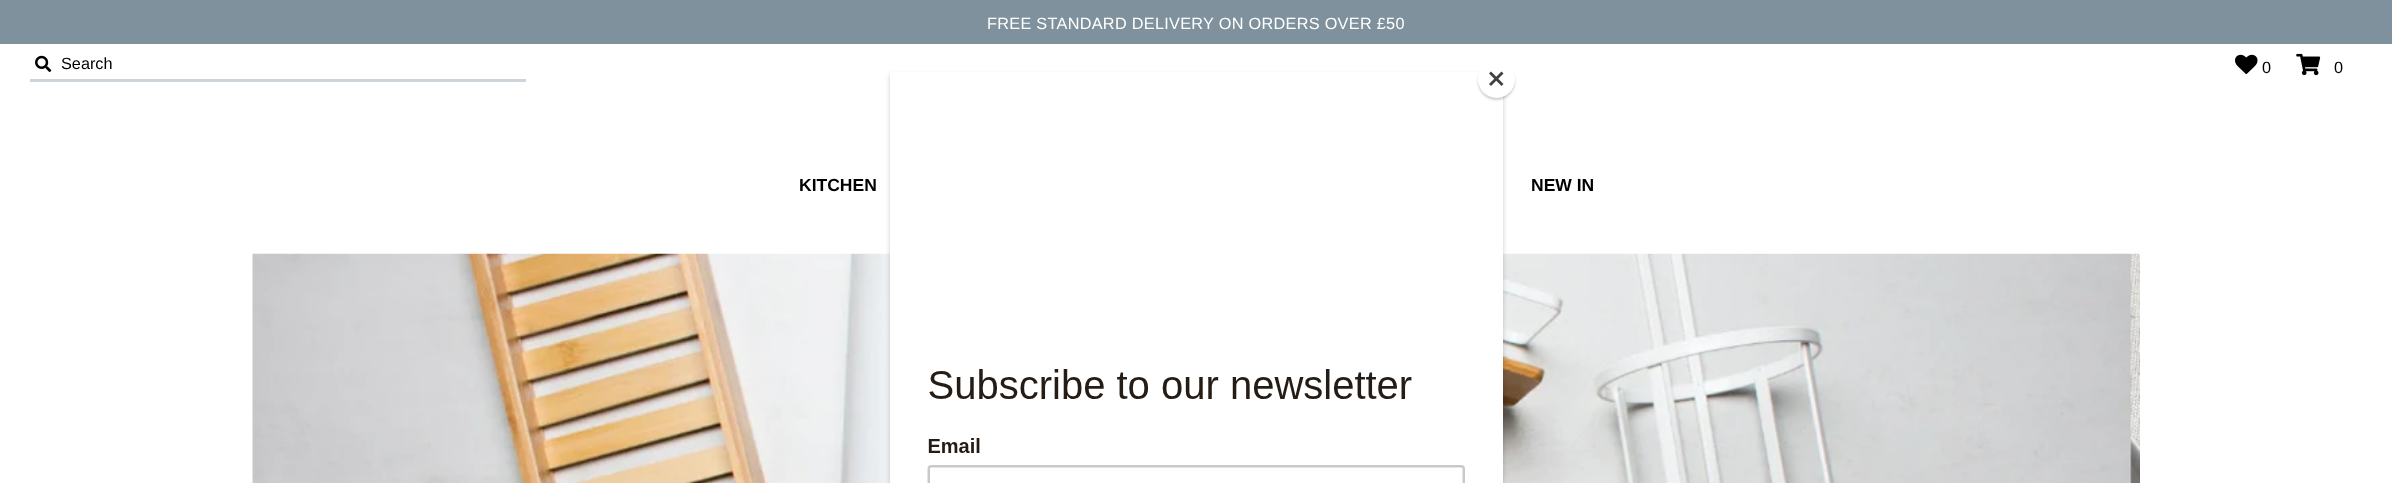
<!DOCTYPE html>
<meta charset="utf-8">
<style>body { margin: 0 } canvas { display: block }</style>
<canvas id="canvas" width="2392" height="483"></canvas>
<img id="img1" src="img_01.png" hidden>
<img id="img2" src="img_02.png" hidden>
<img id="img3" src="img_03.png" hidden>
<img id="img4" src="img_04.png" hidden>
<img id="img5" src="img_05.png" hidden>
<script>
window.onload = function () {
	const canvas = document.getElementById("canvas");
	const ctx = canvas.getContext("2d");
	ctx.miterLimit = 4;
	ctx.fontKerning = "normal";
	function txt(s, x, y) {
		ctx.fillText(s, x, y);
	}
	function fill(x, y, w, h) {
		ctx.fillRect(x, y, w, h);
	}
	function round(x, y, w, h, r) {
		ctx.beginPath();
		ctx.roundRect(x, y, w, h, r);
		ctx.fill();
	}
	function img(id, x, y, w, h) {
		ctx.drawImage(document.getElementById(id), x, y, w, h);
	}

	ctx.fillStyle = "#FFFFFF";
	fill(0, 0, 2392, 483);
	ctx.fillStyle = "#7F919D";
	fill(0, 0, 2392, 44);
	ctx.fillStyle = "#CDD4D9";
	fill(30, 79, 496, 3);
	img("img1", 35, 55, 17, 17);
	img("img2", 2235, 54, 23, 21);
	img("img3", 2296, 53, 25, 23);
	img("img4", 252, 253, 1888, 230);
	ctx.fillStyle = "rgba(0, 0, 0, 0.2)";
	ctx.filter = "blur(2.5px)";
	ctx.beginPath();
	ctx.rect(890, 75, 613, 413);
	ctx.fill();
	ctx.filter = "none";
	img("img5", 890, 72, 613, 411);
	ctx.filter = "blur(1px)";
	ctx.beginPath();
	ctx.roundRect(1478, 63, 37, 37, 18.5);
	ctx.fill();
	ctx.filter = "none";
	ctx.fillStyle = "#FFFFFF";
	round(1478, 60, 37, 38, 18.5);
	ctx.fillStyle = "#414141";
	ctx.beginPath();
	ctx.moveTo(1501.5, 71.5);
	ctx.lineTo(1503.5, 73.5);
	ctx.lineTo(1491, 86);
	ctx.lineTo(1489, 84);
	ctx.closePath();
	ctx.fill();
	ctx.beginPath();
	ctx.moveTo(1489, 73.5);
	ctx.lineTo(1491, 71.5);
	ctx.lineTo(1503.5, 84);
	ctx.lineTo(1501.5, 86);
	ctx.closePath();
	ctx.fill();
	ctx.letterSpacing = "0.3px";
	ctx.font = "16.25px Liberation Sans";
	ctx.fillStyle = "#FFFFFF";
	txt("FREE STANDARD DELIVERY ON ORDERS OVER £50", 987, 29);
	ctx.letterSpacing = "0px";
	ctx.fillStyle = "#000000";
	txt("Search", 61, 69);
	txt("0", 2262, 73);
	ctx.letterSpacing = "1px";
	txt("0", 2334, 73);
	ctx.letterSpacing = "0px";
	ctx.font = "bold 17.5px Liberation Sans";
	txt("KITCHEN", 799, 191);
	txt("NEW IN", 1531, 191);
};
</script>
